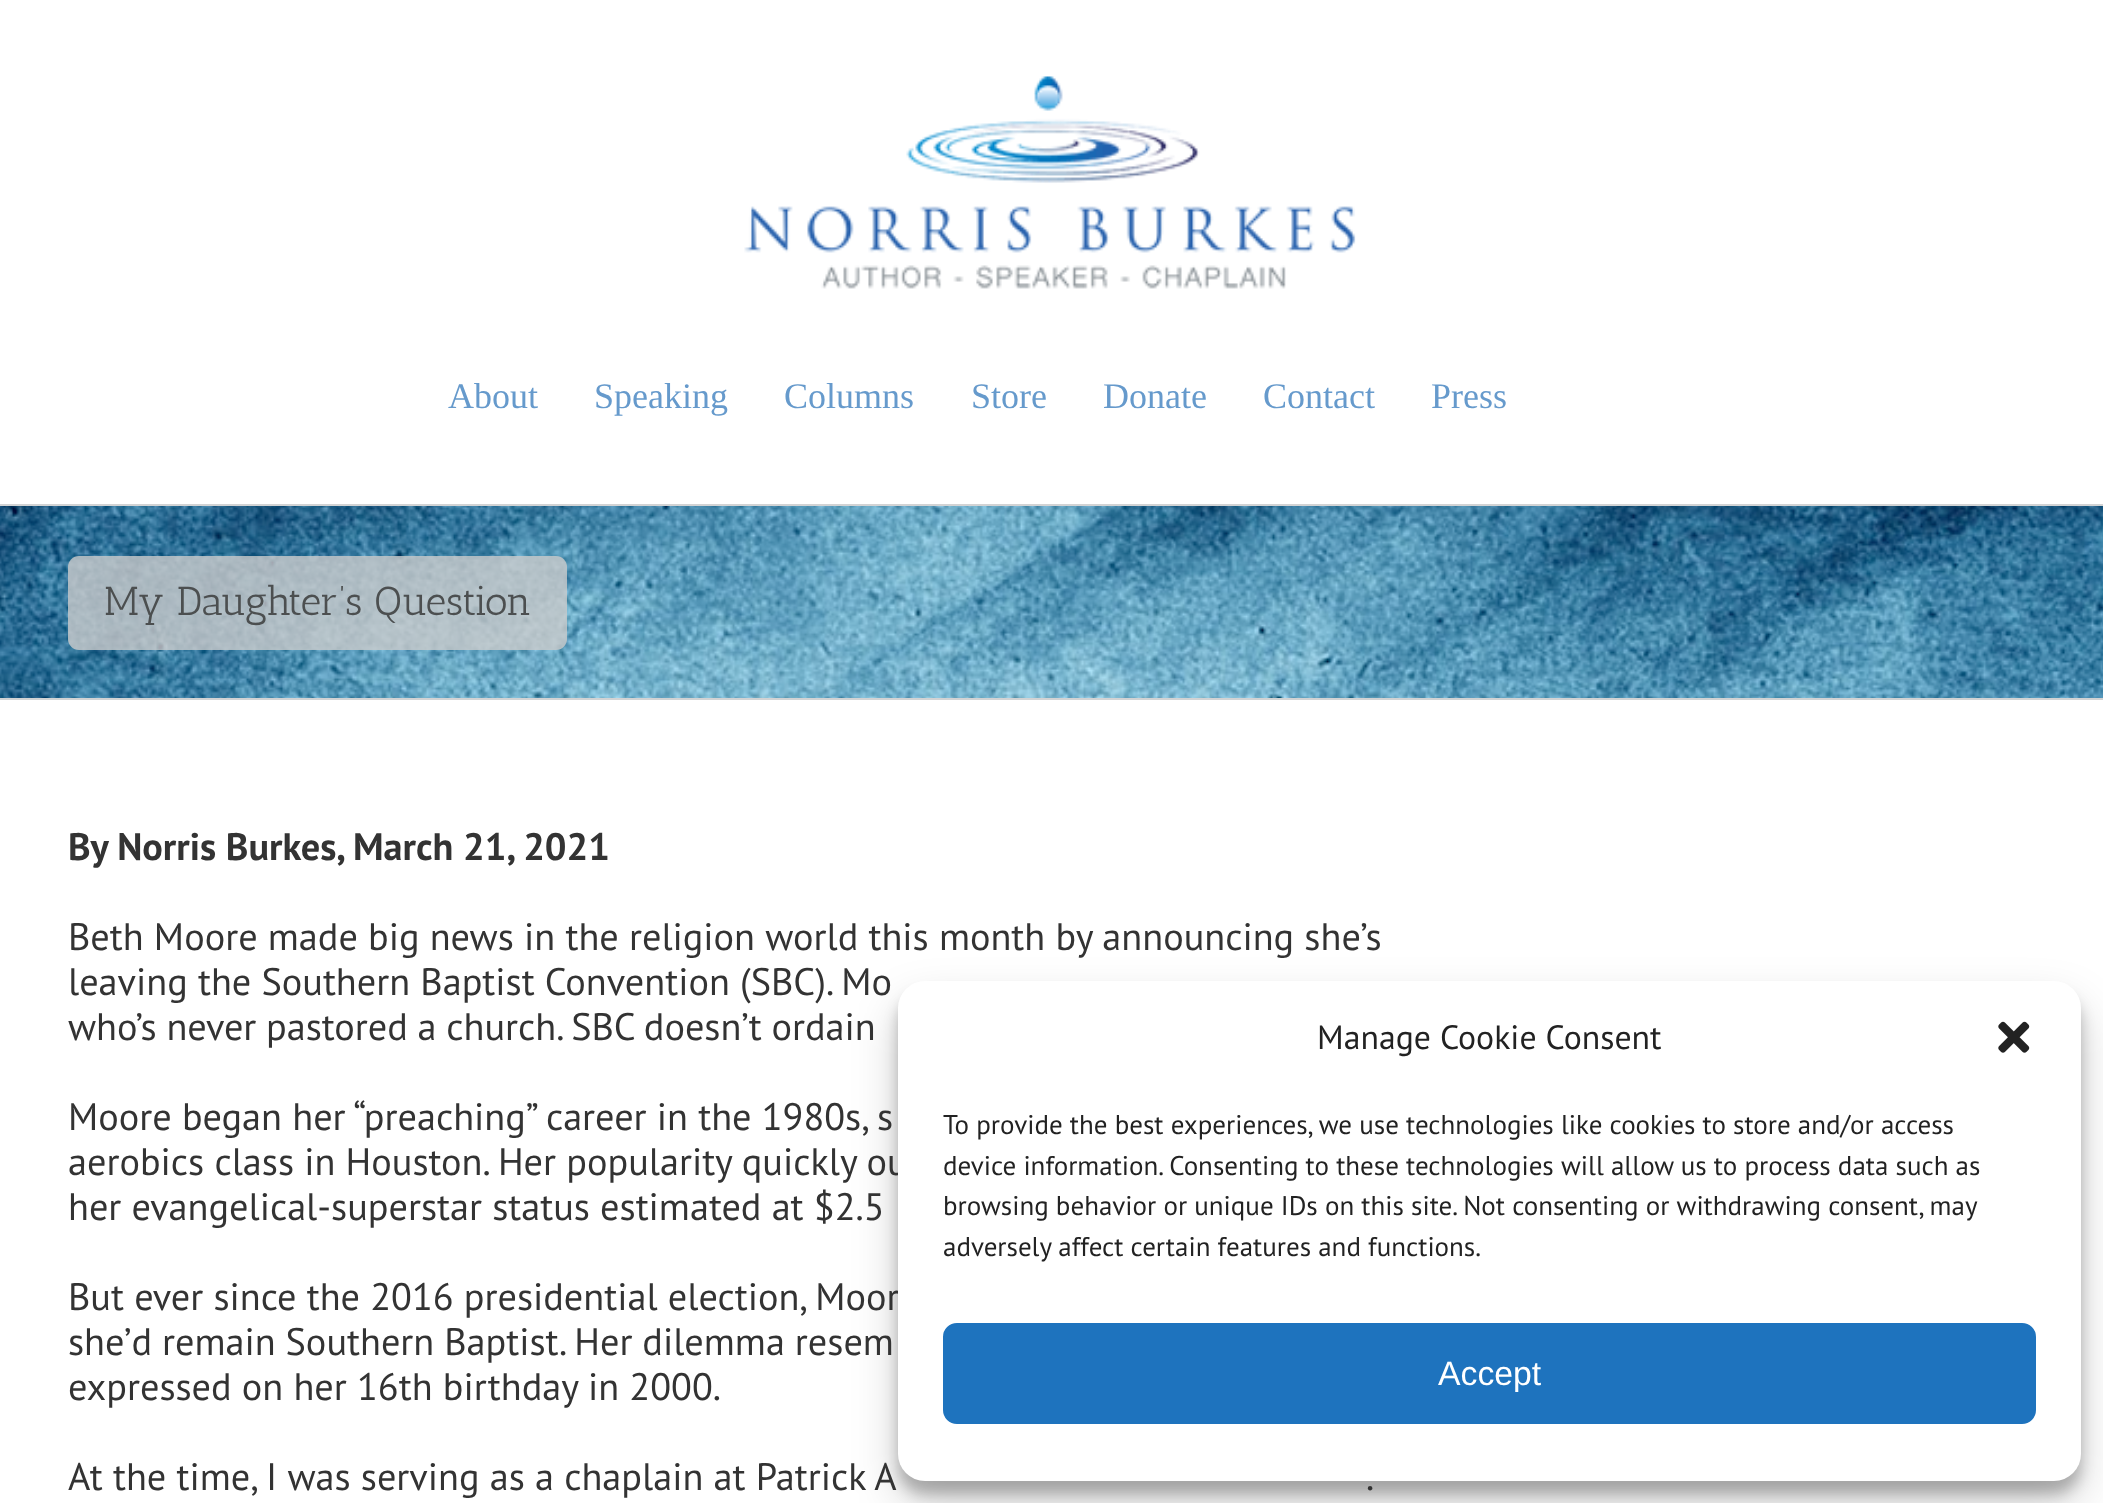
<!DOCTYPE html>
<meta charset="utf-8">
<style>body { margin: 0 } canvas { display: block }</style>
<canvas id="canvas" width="2103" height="1503"></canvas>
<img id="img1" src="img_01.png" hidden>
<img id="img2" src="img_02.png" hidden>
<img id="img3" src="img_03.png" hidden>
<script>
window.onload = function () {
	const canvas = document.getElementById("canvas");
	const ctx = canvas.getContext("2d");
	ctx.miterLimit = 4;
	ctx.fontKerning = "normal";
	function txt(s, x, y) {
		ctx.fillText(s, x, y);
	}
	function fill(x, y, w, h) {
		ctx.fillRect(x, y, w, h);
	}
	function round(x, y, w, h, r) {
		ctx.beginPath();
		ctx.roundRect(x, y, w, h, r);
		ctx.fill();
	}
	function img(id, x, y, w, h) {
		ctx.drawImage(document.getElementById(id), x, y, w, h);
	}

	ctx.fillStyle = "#FFFFFF";
	fill(0, 0, 2103, 1503);
	img("img1", 744, 76, 612, 213);
	img("img2", 0, 506, 2103, 192);
	ctx.fillStyle = "#D2D3D4";
	fill(0, 504, 2103, 2);
	fill(0, 698, 2103, 2);
	ctx.fillStyle = "rgba(204, 204, 204, 0.8)";
	round(68, 556, 499, 94, 11);
	ctx.fillStyle = "rgba(0, 0, 0, 0.23)";
	ctx.filter = "blur(7px)";
	ctx.beginPath();
	ctx.roundRect(898, 995, 1183, 499, 27);
	ctx.fill();
	ctx.filter = "none";
	ctx.fillStyle = "rgba(0, 0, 0, 0.19)";
	ctx.filter = "blur(22.5px)";
	ctx.beginPath();
	ctx.roundRect(898, 1004, 1183, 499, 27);
	ctx.fill();
	ctx.filter = "none";
	ctx.font = "36px Liberation Serif";
	ctx.fillStyle = "#669ACC";
	txt("About", 448, 408);
	txt("Speaking", 594, 408);
	txt("Columns", 784, 408);
	txt("Store", 971, 408);
	txt("Donate", 1103, 408);
	txt("Contact", 1263, 408);
	txt("Press", 1431, 408);
	ctx.font = "40.5px Antic Slab";
	ctx.fillStyle = "#4C4F50";
	txt("My Daughter’s Question", 104, 615);
	ctx.font = "bold 38.25px PT Sans";
	ctx.fillStyle = "#333333";
	txt("By Norris Burkes, March 21, 2021", 68, 860);
	ctx.font = "38.25px PT Sans";
	txt("Beth Moore made big news in the religion world this month by announcing she’s", 68, 950);
	txt("leaving the Southern Baptist Convention (SBC). Mo", 68, 995);
	ctx.wordSpacing = "-0.5px";
	txt("who’s never pastored a church. SBC doesn’t ordain", 68, 1040);
	ctx.wordSpacing = "0px";
	txt("Moore began her “preaching” career in the 1980s, s", 68, 1130);
	txt("aerobics class in Houston. Her popularity quickly ou", 68, 1175);
	txt("her evangelical-superstar status estimated at $2.5", 68, 1220);
	txt("But ever since the 2016 presidential election, Moor", 68, 1310);
	ctx.wordSpacing = "-0.25px";
	txt("she’d remain Southern Baptist. Her dilemma resem", 68, 1355);
	ctx.wordSpacing = "0px";
	txt("expressed on her 16th birthday in 2000.", 68, 1400);
	txt("At the time, I was serving as a chaplain at Patrick A", 68, 1490);
	txt(".", 1366, 1490);
	ctx.fillStyle = "#FFFFFF";
	round(898, 981, 1183, 500, 27);
	ctx.font = "33.75px PT Sans";
	ctx.fillStyle = "#222222";
	txt("Manage Cookie Consent", 1317, 1049);
	img("img3", 1998, 1021, 32, 32);
	ctx.font = "27px PT Sans";
	txt("To provide the best experiences, we use technologies like cookies to store and/or access", 943, 1134);
	txt("device information. Consenting to these technologies will allow us to process data such as", 943, 1175);
	txt("browsing behavior or unique IDs on this site. Not consenting or withdrawing consent, may", 943, 1215);
	txt("adversely affect certain features and functions.", 943, 1256);
	ctx.fillStyle = "#1E73BE";
	ctx.beginPath();
	ctx.roundRect(944, 1324, 1091, 99, 13);
	ctx.fill();
	ctx.strokeStyle = "#1E73BE";
	ctx.lineWidth = 2;
	ctx.stroke();
	ctx.font = "33.75px Liberation Sans";
	ctx.fillStyle = "#FFFFFF";
	txt("Accept", 1438, 1385);
};
</script>
